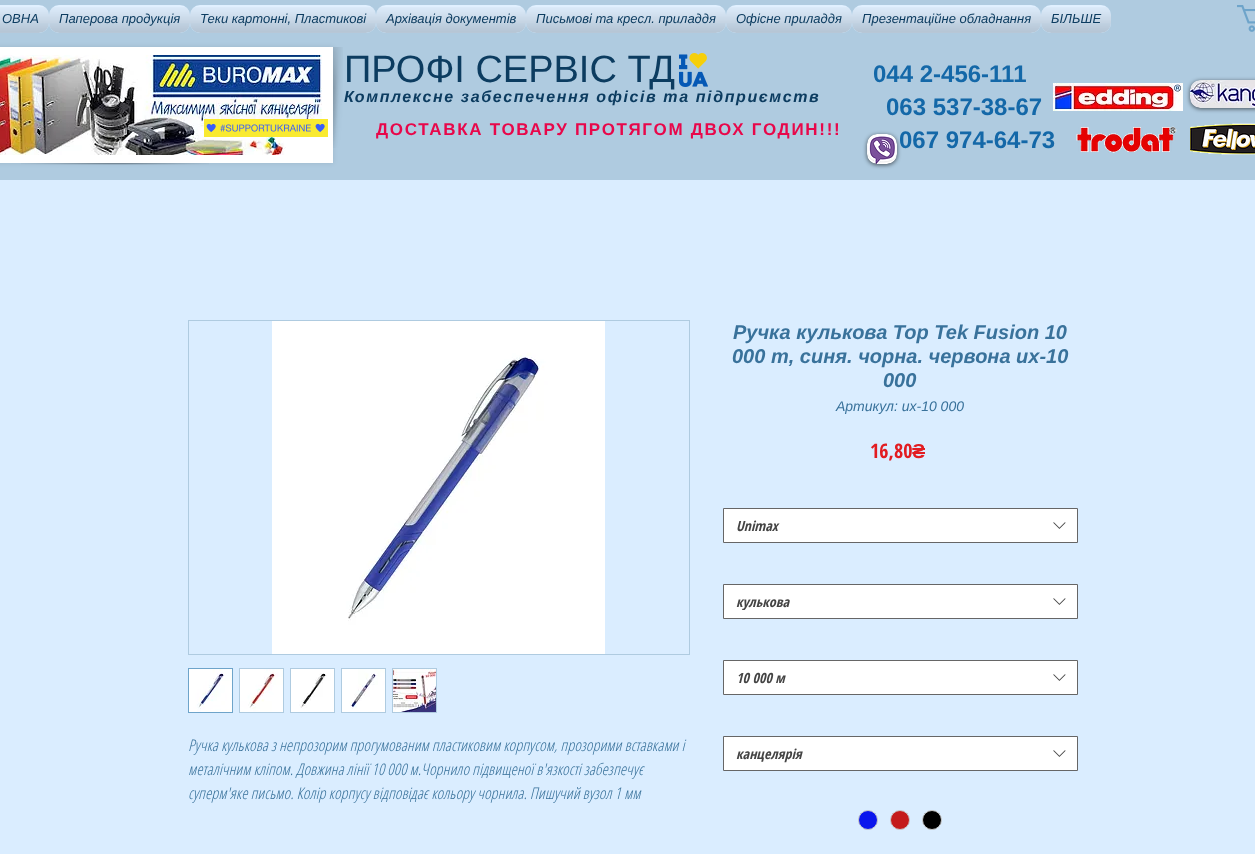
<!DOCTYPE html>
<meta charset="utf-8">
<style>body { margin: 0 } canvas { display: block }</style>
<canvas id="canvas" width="1255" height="854"></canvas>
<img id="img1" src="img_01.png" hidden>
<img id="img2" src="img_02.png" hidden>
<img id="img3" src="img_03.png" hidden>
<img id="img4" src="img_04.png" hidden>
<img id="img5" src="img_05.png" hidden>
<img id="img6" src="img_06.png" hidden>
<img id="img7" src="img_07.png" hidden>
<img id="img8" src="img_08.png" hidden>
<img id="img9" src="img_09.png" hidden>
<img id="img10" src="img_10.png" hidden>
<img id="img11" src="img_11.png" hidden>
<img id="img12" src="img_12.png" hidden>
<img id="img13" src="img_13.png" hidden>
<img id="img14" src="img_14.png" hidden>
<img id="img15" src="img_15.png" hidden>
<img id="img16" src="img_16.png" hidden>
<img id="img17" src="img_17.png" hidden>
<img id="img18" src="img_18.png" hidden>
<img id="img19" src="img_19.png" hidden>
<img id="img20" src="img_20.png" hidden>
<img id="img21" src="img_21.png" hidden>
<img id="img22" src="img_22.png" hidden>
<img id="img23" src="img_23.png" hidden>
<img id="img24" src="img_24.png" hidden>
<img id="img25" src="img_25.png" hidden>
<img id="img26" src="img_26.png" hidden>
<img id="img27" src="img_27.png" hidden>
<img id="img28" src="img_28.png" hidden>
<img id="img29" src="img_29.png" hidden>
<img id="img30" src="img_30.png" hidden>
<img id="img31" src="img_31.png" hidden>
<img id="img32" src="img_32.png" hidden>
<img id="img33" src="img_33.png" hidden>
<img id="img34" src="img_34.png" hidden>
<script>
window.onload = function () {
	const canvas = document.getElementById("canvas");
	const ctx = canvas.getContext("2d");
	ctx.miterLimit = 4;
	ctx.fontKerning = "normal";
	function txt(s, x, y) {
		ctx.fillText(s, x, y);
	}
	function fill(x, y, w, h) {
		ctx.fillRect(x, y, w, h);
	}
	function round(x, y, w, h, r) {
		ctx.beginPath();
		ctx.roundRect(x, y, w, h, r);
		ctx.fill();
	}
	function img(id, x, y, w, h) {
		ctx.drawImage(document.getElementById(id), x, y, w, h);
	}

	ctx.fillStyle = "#DAEDFF";
	fill(0, 0, 1255, 854);
	ctx.fillStyle = "#AFCBE0";
	fill(0, 0, 1255, 180);
	ctx.fillStyle = "#DAEDFF";
	round(-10, 5, 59, 28, 10);
	img("img1", 0, 5, 49, 18);
	img("img2", 0, 7, 49, 26);
	round(49, 5, 141, 28, 10);
	img("img3", 49, 5, 141, 18);
	img("img4", 49, 7, 141, 26);
	round(190, 5, 186, 28, 10);
	img("img5", 190, 5, 186, 18);
	img("img6", 190, 7, 186, 26);
	round(376, 5, 150, 28, 10);
	img("img7", 376, 5, 150, 18);
	img("img8", 376, 7, 150, 26);
	round(526, 5, 200, 28, 10);
	img("img9", 526, 5, 200, 18);
	img("img10", 526, 7, 200, 26);
	round(726, 5, 126, 28, 10);
	img("img11", 726, 5, 126, 18);
	img("img12", 726, 7, 126, 26);
	round(852, 5, 189, 28, 10);
	img("img13", 852, 5, 189, 18);
	img("img14", 852, 7, 189, 26);
	round(1041, 5, 70, 28, 10);
	img("img15", 1041, 5, 70, 18);
	img("img16", 1041, 7, 70, 26);
	img("img17", 1237, 5, 18, 27);
	ctx.fillStyle = "rgba(0, 0, 0, 0.1)";
	ctx.filter = "blur(2.5px)";
	ctx.beginPath();
	ctx.rect(-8, 47, 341, 116);
	ctx.fill();
	ctx.filter = "none";
	ctx.fillStyle = "#FFFFFF";
	fill(0, 47, 333, 116);
	img("img18", 0, 55, 322, 100);
	img("img19", 21, 163, 188, 2);
	img("img20", 333, 47, 10, 101);
	img("img21", 679, 53, 29, 34);
	img("img22", 1053, 83, 130, 28);
	ctx.fillStyle = "rgba(0, 0, 0, 0.6)";
	ctx.filter = "blur(2px)";
	ctx.beginPath();
	ctx.roundRect(1190, 81, 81, 28, 10);
	ctx.fill();
	ctx.filter = "none";
	img("img23", 1190, 80, 65, 28);
	img("img24", 204, 119, 124, 18);
	ctx.filter = "blur(2px)";
	ctx.beginPath();
	ctx.roundRect(867, 135, 30, 30, 10);
	ctx.fill();
	ctx.filter = "none";
	img("img25", 867, 134, 30, 30);
	img("img26", 1076, 126, 101, 27);
	img("img27", 1190, 122, 65, 34);
	ctx.fillStyle = "#FFFFFF";
	ctx.beginPath();
	ctx.rect(723.5, 508.5, 354, 34);
	ctx.fill();
	ctx.strokeStyle = "#666666";
	ctx.stroke();
	img("img28", 1053, 522, 13, 7);
	ctx.beginPath();
	ctx.rect(723.5, 584.5, 354, 34);
	ctx.fill();
	ctx.stroke();
	img("img28", 1053, 598, 13, 7);
	ctx.beginPath();
	ctx.rect(723.5, 660.5, 354, 34);
	ctx.fill();
	ctx.stroke();
	img("img28", 1053, 674, 13, 7);
	ctx.beginPath();
	ctx.rect(723.5, 736.5, 354, 34);
	ctx.fill();
	ctx.stroke();
	img("img28", 1053, 750, 13, 7);
	ctx.fillStyle = "#0B16ED";
	ctx.beginPath();
	ctx.arc(868, 820, 9.5, 0, Math.PI * 2);
	ctx.fill();
	ctx.strokeStyle = "#C9C9C9";
	ctx.stroke();
	ctx.fillStyle = "#C41B1B";
	ctx.beginPath();
	ctx.arc(900, 820, 9.5, 0, Math.PI * 2);
	ctx.fill();
	ctx.stroke();
	ctx.fillStyle = "#000000";
	ctx.beginPath();
	ctx.arc(932, 820, 9.5, 0, Math.PI * 2);
	ctx.fill();
	ctx.stroke();
	ctx.strokeStyle = "#AFCBE0";
	ctx.strokeRect(188.5, 320.5, 501, 334);
	img("img29", 272, 321, 333, 333);
	ctx.strokeStyle = "#6EA4CA";
	ctx.strokeRect(188.5, 668.5, 44, 44);
	img("img30", 189, 669, 43, 43);
	ctx.fillStyle = "#AFCBE0";
	fill(239, 668, 45, 45);
	img("img31", 240, 669, 43, 43);
	fill(290, 668, 45, 45);
	img("img32", 291, 669, 43, 43);
	fill(341, 668, 45, 45);
	img("img33", 342, 669, 43, 43);
	fill(392, 668, 45, 45);
	img("img34", 393, 669, 43, 43);
	ctx.font = "italic 13px Liberation Sans";
	ctx.fillStyle = "#0C3C60";
	txt("ОВНА", 2, 23);
	txt("Паперова продукція", 59, 23);
	txt("Теки картонні, Пластикові", 200, 23);
	txt("Архівація документів", 386, 23);
	txt("Письмові та кресл. приладдя", 536, 23);
	txt("Офісне приладдя", 736, 23);
	txt("Презентаційне обладнання", 862, 23);
	txt("БІЛЬШЕ", 1051, 23);
	ctx.font = "38px Liberation Sans";
	txt("ПРОФІ СЕРВІС ТД", 344, 82);
	ctx.font = "bold 24px Liberation Sans";
	ctx.fillStyle = "#1468A8";
	txt("044 2-456-111", 873, 82);
	txt("063 537-38-67", 886, 115);
	txt("067 974-64-73", 899, 148);
	ctx.letterSpacing = "1.6px";
	ctx.font = "italic bold 16px Liberation Sans";
	ctx.fillStyle = "#0C3C60";
	txt("Комплексне забеспечення офісів та підприємств", 344, 102);
	ctx.letterSpacing = "1.7px";
	ctx.font = "bold 17px Liberation Sans";
	ctx.fillStyle = "#E8074A";
	txt("ДОСТАВКА ТОВАРУ ПРОТЯГОМ ДВОХ ГОДИН!!!", 376, 135);
	ctx.letterSpacing = "0px";
	ctx.font = "italic bold 20px Liberation Sans";
	ctx.fillStyle = "#39729B";
	txt("Ручка кулькова Top Tek Fusion 10", 733, 339);
	txt("000 m, синя. чорна. червона ux-10", 732, 363);
	txt("000", 883, 387);
	ctx.font = "italic 14px Liberation Sans";
	txt("Артикул: ux-10 000", 836, 411);
	ctx.font = "bold 20px Open Sans Condensed";
	ctx.fillStyle = "#E21C21";
	txt("16,80", 870, 458);
	ctx.font = "bold 20px Liberation Sans";
	txt("₴", 912, 458);
	ctx.font = "italic bold 14px Open Sans Condensed";
	ctx.fillStyle = "#444444";
	txt("Unimax", 736, 531);
	ctx.save();
	ctx.beginPath();
	ctx.rect(736, 593, 309, 17);
	ctx.clip();
	txt("кулькова", 736, 607);
	ctx.restore();
	txt("10 000 м", 736, 683);
	txt("канцелярія", 736, 759);
	ctx.font = "italic 300 16px Open Sans Condensed";
	ctx.fillStyle = "#39729B";
	txt("Ручка кулькова з непрозорим прогумованим пластиковим корпусом, прозорими вставками і", 188, 751);
	txt("металічним кліпом. Довжина лінії 10 000 м.Чорнило підвищеної в'язкості забезпечує", 188, 775);
	txt("суперм'яке письмо. Колір корпусу відповідає кольору чорнила. Пишучий вузол 1 мм", 188, 799);
};
</script>
